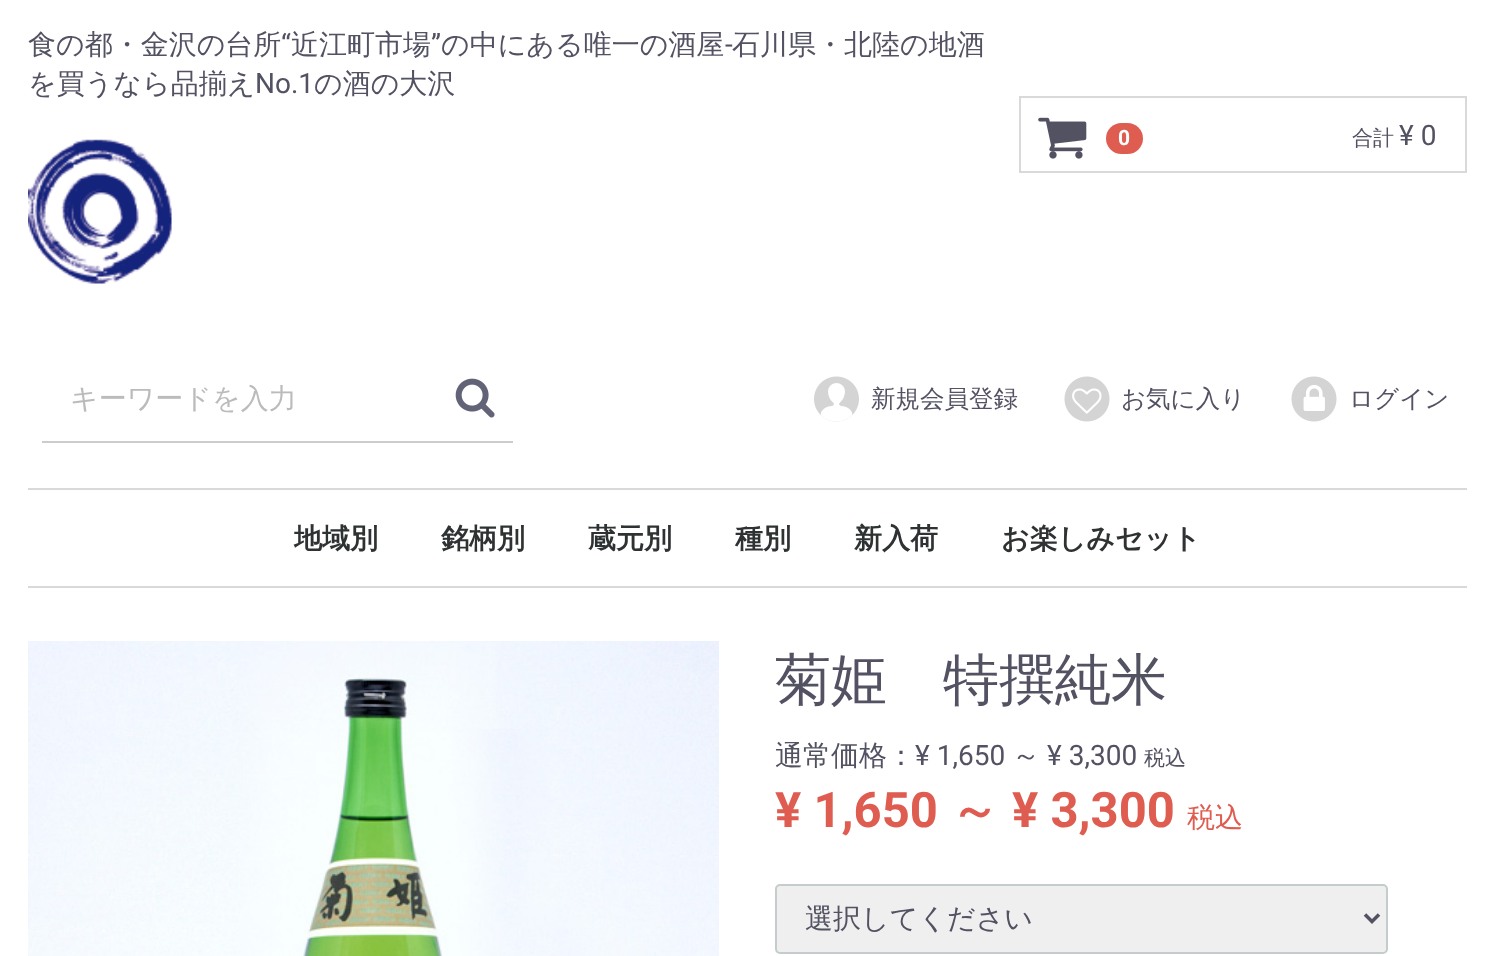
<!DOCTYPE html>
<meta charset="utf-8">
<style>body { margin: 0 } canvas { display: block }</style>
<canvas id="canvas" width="1494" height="956"></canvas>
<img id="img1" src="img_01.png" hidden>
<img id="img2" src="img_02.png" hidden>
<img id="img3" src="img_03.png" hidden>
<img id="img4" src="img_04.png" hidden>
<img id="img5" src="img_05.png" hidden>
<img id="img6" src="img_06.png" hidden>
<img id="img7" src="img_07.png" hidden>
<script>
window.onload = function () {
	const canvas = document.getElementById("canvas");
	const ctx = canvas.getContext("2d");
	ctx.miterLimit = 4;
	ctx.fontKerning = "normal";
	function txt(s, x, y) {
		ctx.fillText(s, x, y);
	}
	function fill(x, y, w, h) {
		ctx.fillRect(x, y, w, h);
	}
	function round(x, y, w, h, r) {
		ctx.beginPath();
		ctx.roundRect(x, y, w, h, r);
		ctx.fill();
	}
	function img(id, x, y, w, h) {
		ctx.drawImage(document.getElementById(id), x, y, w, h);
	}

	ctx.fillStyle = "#FFFFFF";
	fill(0, 0, 1494, 956);
	img("img1", 28, 139, 144, 145);
	ctx.strokeStyle = "#D9D9D9";
	ctx.lineWidth = 2;
	ctx.strokeRect(1020, 97, 446, 75);
	img("img2", 1038, 117, 49, 42);
	ctx.fillStyle = "#DE5D50";
	round(1106, 123, 37, 31, 15.5);
	ctx.fillStyle = "#CCCCCC";
	fill(42, 441, 471, 2);
	img("img3", 455, 378, 40, 40);
	img("img4", 814, 376, 45, 46);
	img("img5", 1064, 376, 46, 46);
	img("img6", 1291, 376, 46, 46);
	ctx.fillStyle = "#D9D9D9";
	fill(28, 488, 1439, 2);
	fill(28, 586, 1439, 2);
	img("img7", 28, 641, 691, 315);
	ctx.fillStyle = "#EFEFEF";
	ctx.beginPath();
	ctx.roundRect(776, 885, 611, 68, 4);
	ctx.fill();
	ctx.strokeStyle = "#C4CCCE";
	ctx.stroke();
	ctx.beginPath();
	ctx.moveTo(1365, 914.5);
	ctx.lineTo(1372, 921.5);
	ctx.lineTo(1379, 914.5);
	ctx.strokeStyle = "#525263";
	ctx.lineWidth = 3.5;
	ctx.stroke();
	ctx.font = "500 28px WenQuanYi Zen Hei";
	ctx.fillStyle = "#525263";
	txt("食の都・金沢の台所", 28, 54);
	ctx.font = "28px Roboto";
	txt("“", 281, 54);
	ctx.font = "500 28px WenQuanYi Zen Hei";
	txt("近江町市場", 291, 54);
	ctx.font = "28px Roboto";
	txt("”", 431, 54);
	ctx.font = "500 28px WenQuanYi Zen Hei";
	txt("の中にある唯一の酒屋", 441, 54);
	txt("石川県・北陸の地酒", 732, 54);
	ctx.font = "28px Roboto";
	txt("-", 725, 54);
	ctx.font = "500 28px WenQuanYi Zen Hei";
	txt("を買うなら品揃え", 28, 93);
	ctx.font = "28px Roboto";
	txt("No.1", 255, 93);
	ctx.font = "500 28px WenQuanYi Zen Hei";
	txt("の酒の大沢", 314, 93);
	ctx.font = "bold 21px Roboto";
	ctx.fillStyle = "#FFFFFF";
	txt("0", 1118, 145);
	ctx.font = "500 21px WenQuanYi Zen Hei";
	ctx.fillStyle = "#525263";
	txt("合計", 1352, 145);
	ctx.font = "28px Roboto";
	txt("¥ 0", 1399, 145);
	ctx.font = "500 28px WenQuanYi Zen Hei";
	ctx.fillStyle = "#BBBBBB";
	txt("キーワードを入力", 70, 408);
	ctx.font = "500 24.5px WenQuanYi Zen Hei";
	ctx.fillStyle = "#525263";
	txt("新規会員登録", 871, 407);
	txt("お気に入り", 1121, 407);
	txt("ログイン", 1349, 407);
	ctx.font = "bold 28px WenQuanYi Zen Hei";
	ctx.fillStyle = "#2E3233";
	txt("地域別", 294, 548);
	txt("銘柄別", 441, 548);
	txt("蔵元別", 588, 548);
	txt("種別", 735, 548);
	txt("新入荷", 854, 548);
	txt("お楽しみセット", 1001, 548);
	ctx.font = "500 56px WenQuanYi Zen Hei";
	ctx.fillStyle = "#525263";
	txt("菊姫　特撰純米", 775, 699);
	ctx.font = "500 28px WenQuanYi Zen Hei";
	txt("通常価格：", 775, 765);
	ctx.font = "28px Roboto";
	txt("¥ 1,650", 915, 765);
	ctx.font = "500 28px WenQuanYi Zen Hei";
	txt("～", 1012, 765);
	ctx.font = "28px Roboto";
	txt("¥ 3,300", 1047, 765);
	ctx.font = "500 21px WenQuanYi Zen Hei";
	txt("税込", 1144, 765);
	ctx.font = "bold 49px Roboto";
	ctx.fillStyle = "#DE5D50";
	txt("¥ 1,650", 775, 827);
	ctx.font = "bold 49px WenQuanYi Zen Hei";
	txt("～", 950, 827);
	ctx.font = "bold 49px Roboto";
	txt("¥ 3,300", 1012, 827);
	ctx.font = "500 28px WenQuanYi Zen Hei";
	txt("税込", 1187, 827);
	ctx.fillStyle = "#525263";
	txt("選択してください", 805, 928);
};
</script>
